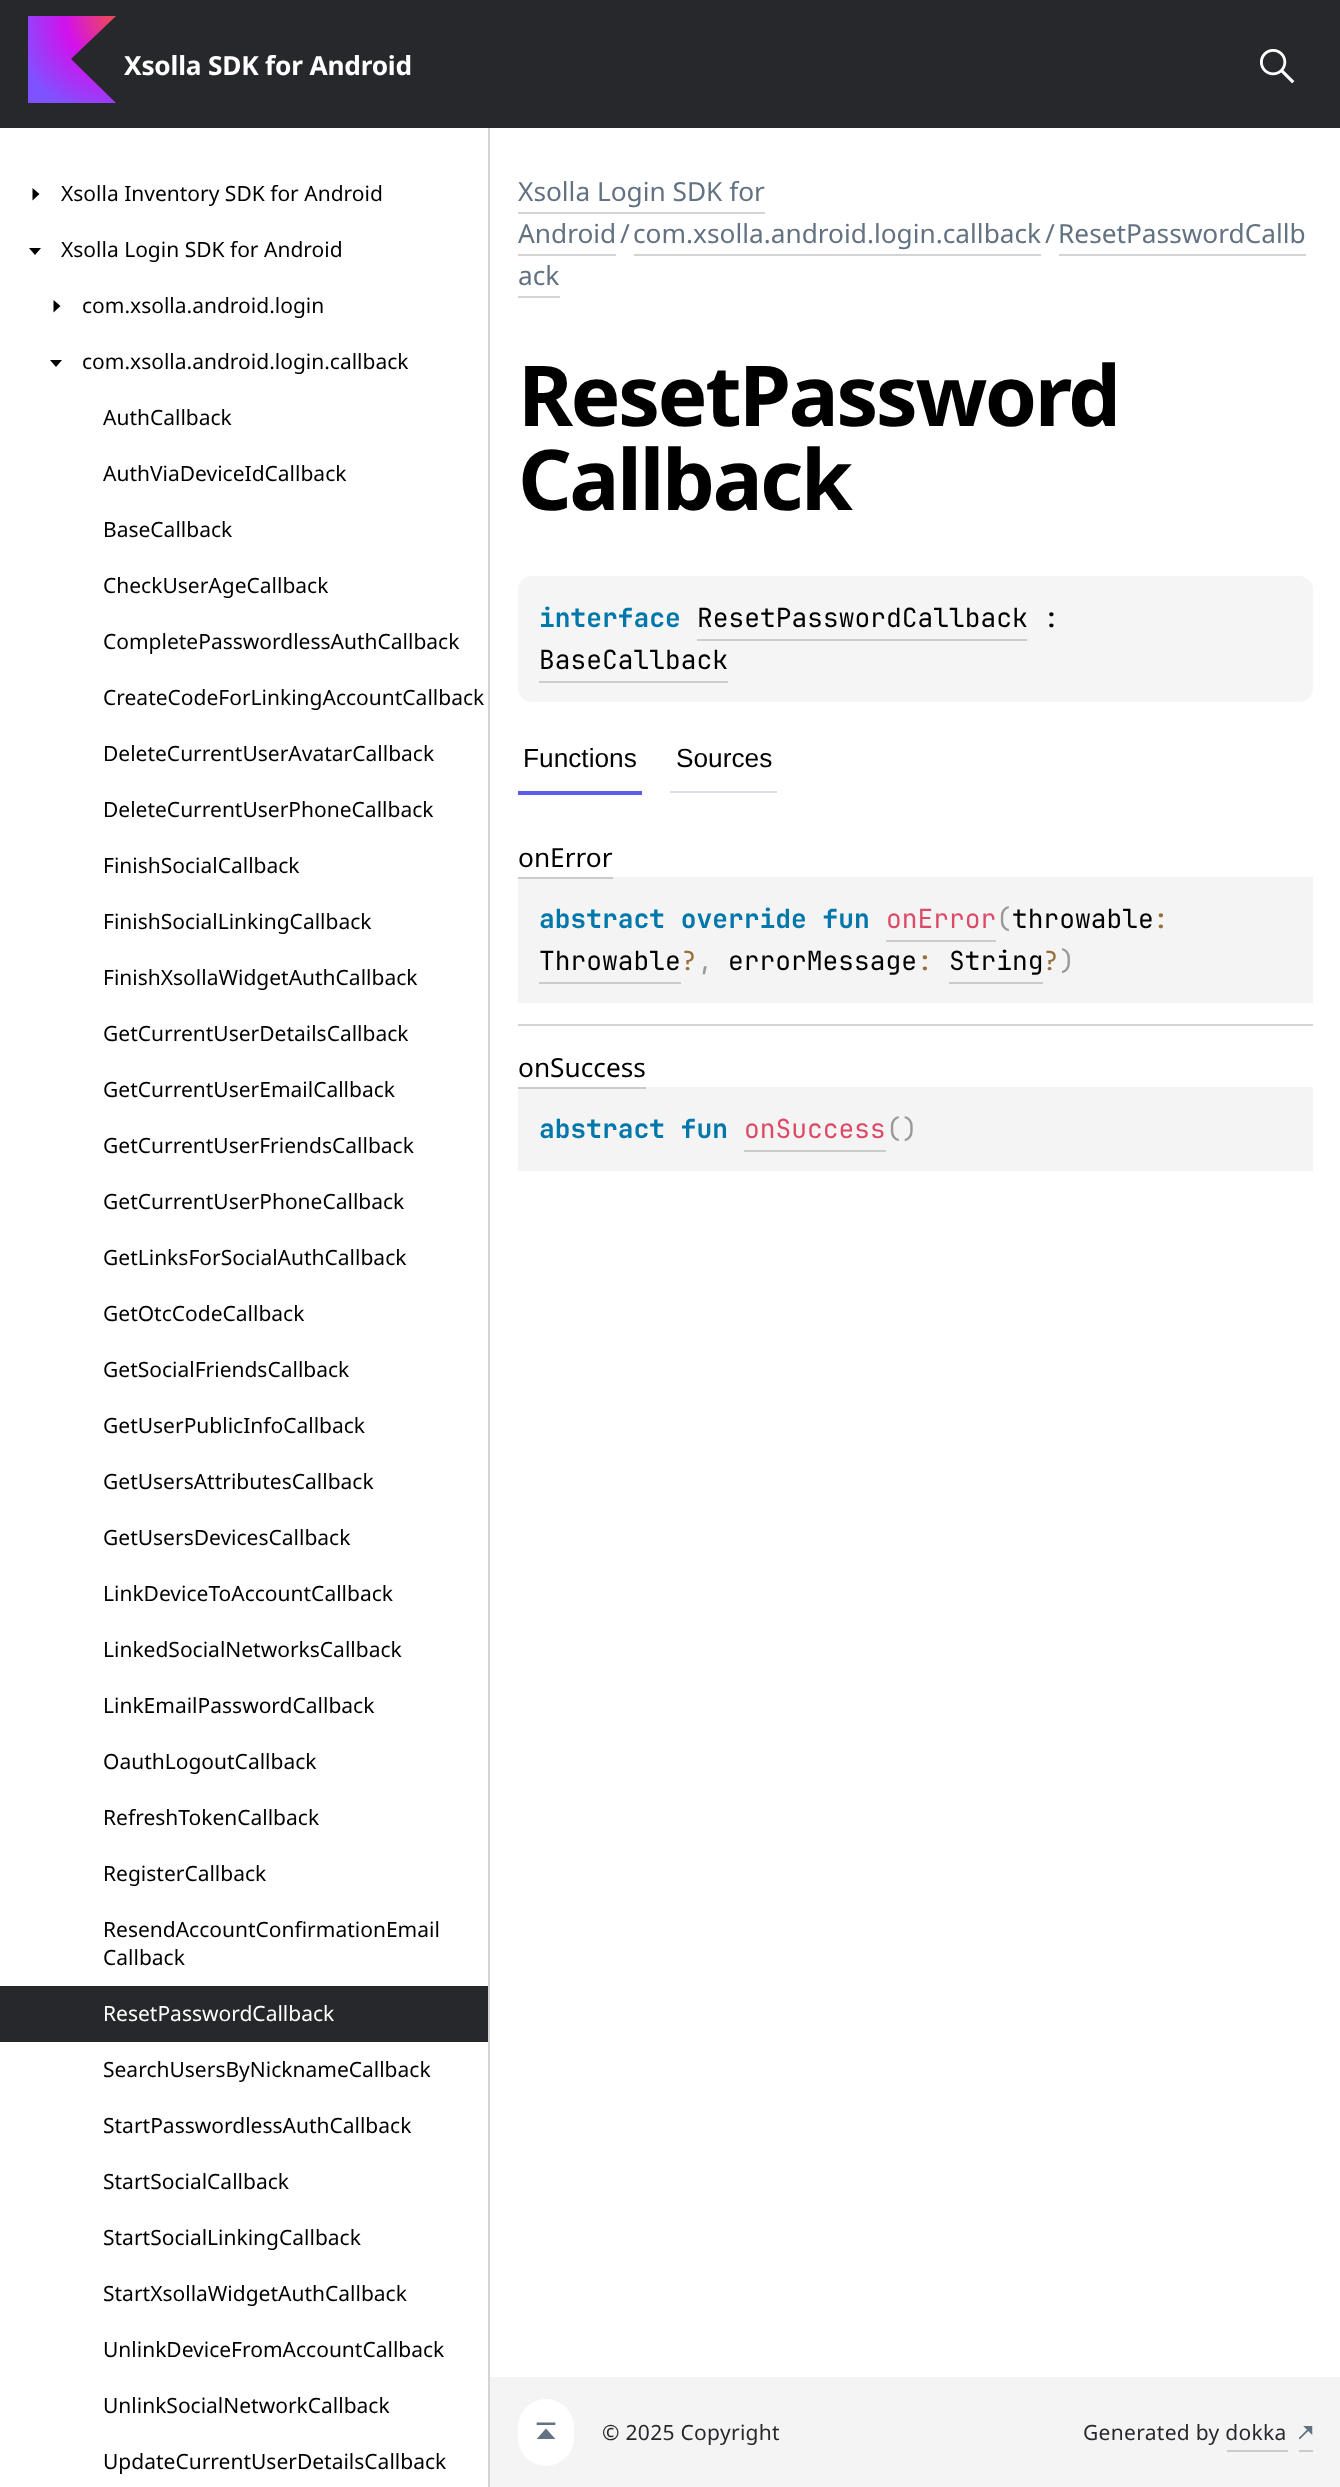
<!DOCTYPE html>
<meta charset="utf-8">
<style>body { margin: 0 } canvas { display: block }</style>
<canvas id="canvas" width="1340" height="2487"></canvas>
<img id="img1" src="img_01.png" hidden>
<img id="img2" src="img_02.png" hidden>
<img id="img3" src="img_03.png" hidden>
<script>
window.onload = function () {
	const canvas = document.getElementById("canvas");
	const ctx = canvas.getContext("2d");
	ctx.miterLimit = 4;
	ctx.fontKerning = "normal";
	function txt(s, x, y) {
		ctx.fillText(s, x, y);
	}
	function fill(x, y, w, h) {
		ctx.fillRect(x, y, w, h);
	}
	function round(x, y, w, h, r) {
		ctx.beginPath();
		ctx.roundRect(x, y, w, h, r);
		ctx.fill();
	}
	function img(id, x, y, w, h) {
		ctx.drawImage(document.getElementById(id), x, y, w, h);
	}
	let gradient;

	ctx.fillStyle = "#FFFFFF";
	fill(0, 0, 1340, 2487);
	ctx.fillStyle = "#27282C";
	fill(0, 0, 1340, 128);
	gradient = ctx.createRadialGradient(113, 19, 0, 113, 19, 100);
	gradient.addColorStop(0, "#EF4857");
	gradient.addColorStop(0.47, "#D211EC");
	gradient.addColorStop(1, "#7F52FF");
	ctx.fillStyle = gradient;
	ctx.beginPath();
	ctx.moveTo(116, 103);
	ctx.lineTo(28, 103);
	ctx.lineTo(28, 16);
	ctx.lineTo(116, 16);
	ctx.lineTo(71, 59);
	ctx.closePath();
	ctx.fill();
	img("img1", 1260, 49, 35, 35);
	ctx.fillStyle = "#D4D4D5";
	fill(488, 128, 2, 2359);
	ctx.fillStyle = "#000000";
	ctx.beginPath();
	ctx.moveTo(39.5, 194);
	ctx.lineTo(32.5, 200.5);
	ctx.lineTo(32.5, 188);
	ctx.closePath();
	ctx.fill();
	ctx.beginPath();
	ctx.moveTo(35, 255);
	ctx.lineTo(29, 248);
	ctx.lineTo(41, 248);
	ctx.closePath();
	ctx.fill();
	ctx.beginPath();
	ctx.moveTo(60.5, 306);
	ctx.lineTo(53.5, 312.5);
	ctx.lineTo(53.5, 300);
	ctx.closePath();
	ctx.fill();
	ctx.beginPath();
	ctx.moveTo(56, 367);
	ctx.lineTo(50, 360);
	ctx.lineTo(62, 360);
	ctx.closePath();
	ctx.fill();
	ctx.fillStyle = "#27282C";
	fill(0, 1986, 488, 56);
	ctx.fillStyle = "#D4D4D5";
	fill(518, 212, 247, 2);
	fill(518, 254, 98, 2);
	fill(634, 254, 407, 2);
	fill(1059, 254, 247, 2);
	fill(518, 296, 42, 2);
	ctx.fillStyle = "#F5F5F5";
	round(518, 576, 795, 126, 14);
	ctx.fillStyle = "#CCCCCD";
	fill(697, 639, 330, 2);
	fill(539, 681, 189, 2);
	ctx.fillStyle = "#5B5DEF";
	fill(518, 791, 124, 4);
	ctx.fillStyle = "#DADFE6";
	fill(670, 791, 107, 2);
	ctx.fillStyle = "#D4D4D5";
	fill(518, 1024, 795, 2);
	fill(518, 877, 95, 2);
	ctx.fillStyle = "rgba(39, 40, 44, 0.05)";
	fill(518, 877, 795, 126);
	ctx.fillStyle = "#CBCBCC";
	fill(886, 940, 110, 2);
	fill(539, 982, 142, 2);
	fill(949, 982, 94, 2);
	ctx.fillStyle = "#D4D4D5";
	fill(518, 1087, 128, 2);
	ctx.fillStyle = "rgba(39, 40, 44, 0.05)";
	fill(518, 1087, 795, 84);
	ctx.fillStyle = "#CBCBCC";
	fill(744, 1150, 142, 2);
	ctx.fillStyle = "#F4F4F4";
	fill(490, 2377, 850, 110);
	ctx.fillStyle = "#FFFFFF";
	round(518, 2399, 56, 67, 28);
	img("img2", 536, 2422, 20, 17);
	img("img3", 1299, 2426, 14, 14);
	ctx.fillStyle = "#CBCBCC";
	fill(1227, 2450, 61, 2);
	fill(1299, 2450, 14, 2);
	ctx.letterSpacing = "-0.2px";
	ctx.font = "bold 26.25px Noto Sans";
	ctx.fillStyle = "#FFFFFF";
	txt("Xsolla SDK for Android", 124, 75);
	ctx.letterSpacing = "0px";
	ctx.font = "21px Noto Sans";
	ctx.fillStyle = "#000000";
	txt("Xsolla Inventory SDK for Android", 61, 201);
	txt("Xsolla Login SDK for Android", 61, 257);
	txt("com.xsolla.android.login", 82, 313);
	txt("com.xsolla.android.login.callback", 82, 369);
	txt("AuthCallback", 103, 425);
	txt("AuthViaDeviceIdCallback", 103, 481);
	txt("BaseCallback", 103, 537);
	txt("CheckUserAgeCallback", 103, 593);
	txt("CompletePasswordlessAuthCallback", 103, 649);
	txt("CreateCodeForLinkingAccountCallback", 103, 705);
	txt("DeleteCurrentUserAvatarCallback", 103, 761);
	txt("DeleteCurrentUserPhoneCallback", 103, 817);
	txt("FinishSocialCallback", 103, 873);
	txt("FinishSocialLinkingCallback", 103, 929);
	txt("FinishXsollaWidgetAuthCallback", 103, 985);
	txt("GetCurrentUserDetailsCallback", 103, 1041);
	txt("GetCurrentUserEmailCallback", 103, 1097);
	txt("GetCurrentUserFriendsCallback", 103, 1153);
	txt("GetCurrentUserPhoneCallback", 103, 1209);
	txt("GetLinksForSocialAuthCallback", 103, 1265);
	txt("GetOtcCodeCallback", 103, 1321);
	txt("GetSocialFriendsCallback", 103, 1377);
	txt("GetUserPublicInfoCallback", 103, 1433);
	txt("GetUsersAttributesCallback", 103, 1489);
	txt("GetUsersDevicesCallback", 103, 1545);
	txt("LinkDeviceToAccountCallback", 103, 1601);
	txt("LinkedSocialNetworksCallback", 103, 1657);
	txt("LinkEmailPasswordCallback", 103, 1713);
	txt("OauthLogoutCallback", 103, 1769);
	txt("RefreshTokenCallback", 103, 1825);
	txt("RegisterCallback", 103, 1881);
	txt("ResendAccountConfirmationEmail", 103, 1937);
	txt("Callback", 103, 1965);
	ctx.fillStyle = "#FFFFFF";
	txt("ResetPasswordCallback", 103, 2021);
	ctx.fillStyle = "#000000";
	txt("SearchUsersByNicknameCallback", 103, 2077);
	txt("StartPasswordlessAuthCallback", 103, 2133);
	txt("StartSocialCallback", 103, 2189);
	txt("StartSocialLinkingCallback", 103, 2245);
	txt("StartXsollaWidgetAuthCallback", 103, 2301);
	txt("UnlinkDeviceFromAccountCallback", 103, 2357);
	txt("UnlinkSocialNetworkCallback", 103, 2413);
	txt("UpdateCurrentUserDetailsCallback", 103, 2469);
	ctx.font = "26.25px Noto Sans";
	ctx.fillStyle = "#637282";
	txt("Xsolla Login SDK for", 518, 201);
	txt("Android", 518, 243);
	txt("/", 620, 243);
	txt("com.xsolla.android.login.callback", 633, 243);
	txt("/", 1045, 243);
	txt("ResetPasswordCallb", 1058, 243);
	txt("ack", 518, 285);
	ctx.letterSpacing = "-2.6px";
	ctx.font = "bold 84px Noto Sans";
	ctx.fillStyle = "#000000";
	txt("ResetPassword", 518, 426);
	txt("Callback", 518, 510);
	ctx.letterSpacing = "0px";
	ctx.font = "bold 26.25px JetBrains Mono";
	ctx.fillStyle = "#0077AA";
	txt("interface", 539, 627);
	ctx.font = "26.25px JetBrains Mono";
	ctx.fillStyle = "#000000";
	txt("ResetPasswordCallback :", 697, 627);
	txt("BaseCallback", 539, 669);
	ctx.font = "26.25px Liberation Sans";
	txt("Functions", 523, 767);
	txt("Sources", 676, 767);
	ctx.font = "26.25px Noto Sans";
	txt("onError", 518, 867);
	ctx.font = "bold 26.25px JetBrains Mono";
	ctx.fillStyle = "#0077AA";
	txt("abstract override fun", 539, 928);
	ctx.font = "26.25px JetBrains Mono";
	ctx.fillStyle = "#DD4A68";
	txt("onError", 886, 928);
	ctx.fillStyle = "#999999";
	txt("(", 996, 928);
	ctx.fillStyle = "#000000";
	txt("throwable", 1012, 928);
	ctx.fillStyle = "#9A6E3A";
	txt(":", 1153, 928);
	ctx.fillStyle = "#000000";
	txt("Throwable", 539, 970);
	ctx.fillStyle = "#9A6E3A";
	txt("?", 681, 970);
	ctx.fillStyle = "#999999";
	txt(",", 697, 970);
	ctx.fillStyle = "#000000";
	txt("errorMessage", 728, 970);
	ctx.fillStyle = "#9A6E3A";
	txt(":", 917, 970);
	ctx.fillStyle = "#000000";
	txt("String", 949, 970);
	ctx.fillStyle = "#9A6E3A";
	txt("?", 1043, 970);
	ctx.fillStyle = "#999999";
	txt(")", 1059, 970);
	ctx.font = "26.25px Noto Sans";
	ctx.fillStyle = "#000000";
	txt("onSuccess", 518, 1077);
	ctx.font = "bold 26.25px JetBrains Mono";
	ctx.fillStyle = "#0077AA";
	txt("abstract fun", 539, 1138);
	ctx.font = "26.25px JetBrains Mono";
	ctx.fillStyle = "#DD4A68";
	txt("onSuccess", 744, 1138);
	ctx.fillStyle = "#999999";
	txt("()", 886, 1138);
	ctx.letterSpacing = "0.3px";
	ctx.font = "21px Noto Sans";
	ctx.fillStyle = "#27282C";
	txt("© 2025 Copyright", 602, 2440);
	txt("Generated by dokka", 1083, 2440);
};
</script>
